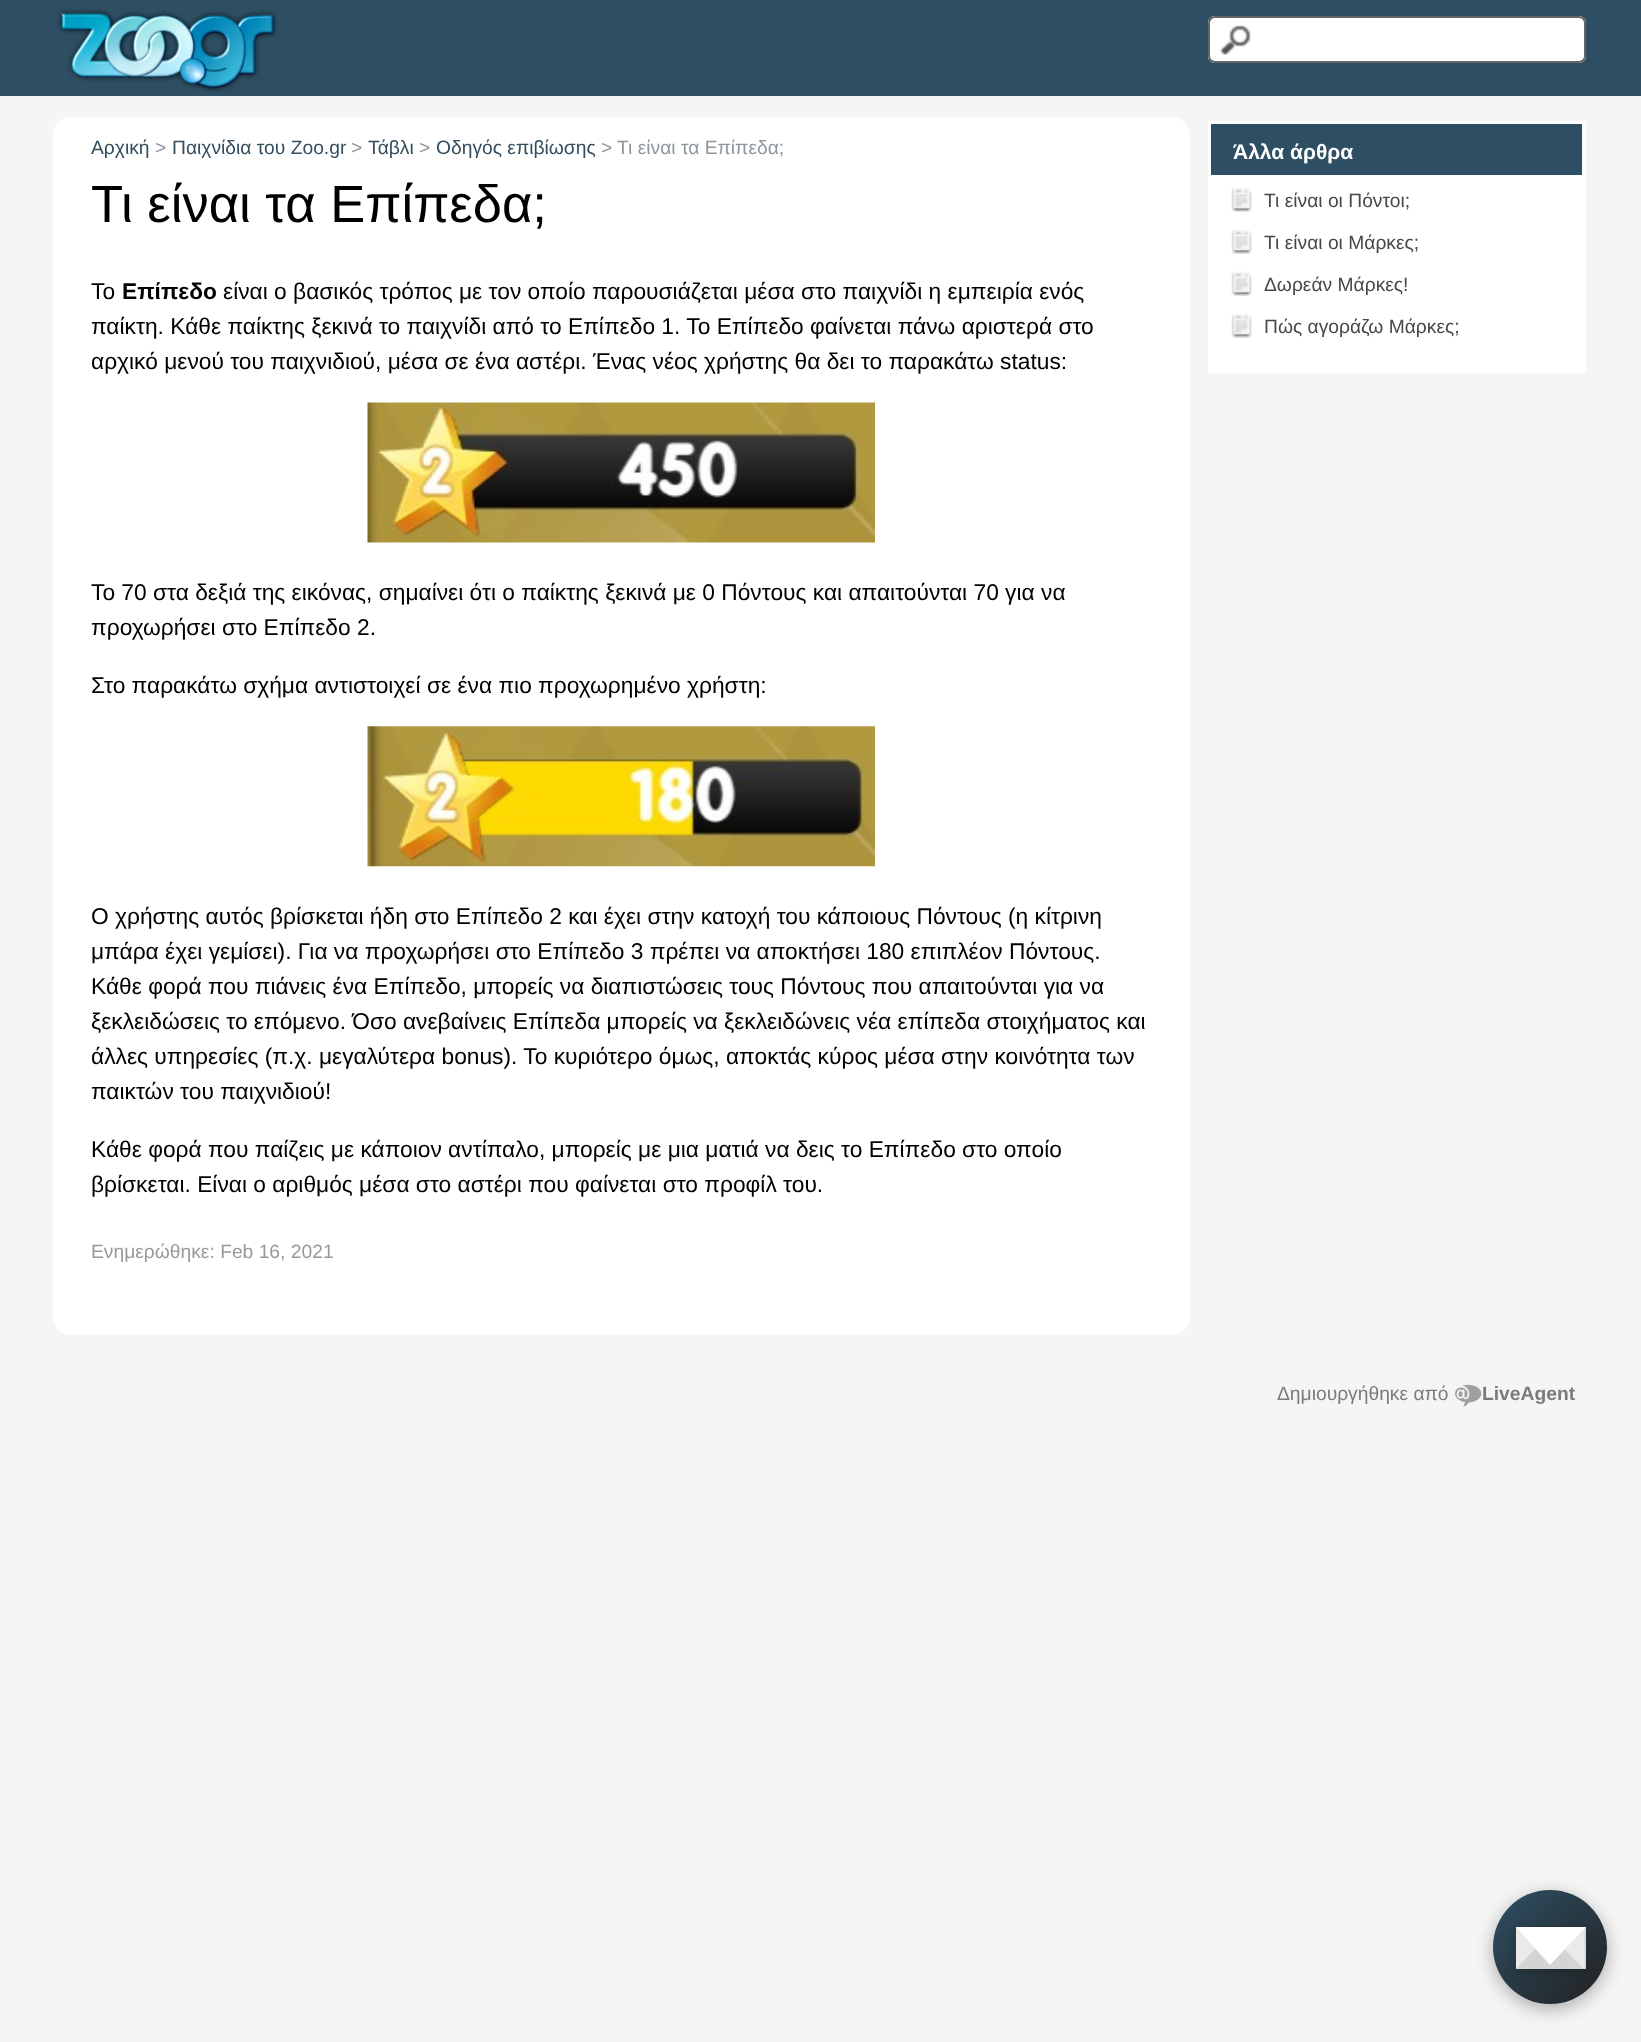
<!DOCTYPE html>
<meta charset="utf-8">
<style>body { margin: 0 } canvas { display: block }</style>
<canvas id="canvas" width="1641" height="2042"></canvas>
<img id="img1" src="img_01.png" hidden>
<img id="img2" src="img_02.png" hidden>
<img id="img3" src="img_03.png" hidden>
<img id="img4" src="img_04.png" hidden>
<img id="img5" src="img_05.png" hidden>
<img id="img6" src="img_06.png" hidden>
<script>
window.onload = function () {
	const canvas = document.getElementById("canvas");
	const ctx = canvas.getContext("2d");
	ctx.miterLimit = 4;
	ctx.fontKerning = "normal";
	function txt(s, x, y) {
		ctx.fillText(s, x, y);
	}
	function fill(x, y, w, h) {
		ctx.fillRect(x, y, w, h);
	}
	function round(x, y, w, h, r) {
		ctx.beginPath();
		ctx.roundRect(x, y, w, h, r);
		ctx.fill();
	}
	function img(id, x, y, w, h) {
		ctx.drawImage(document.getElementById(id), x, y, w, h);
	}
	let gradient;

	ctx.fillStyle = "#F5F5F5";
	fill(0, 0, 1641, 2042);
	ctx.fillStyle = "#2E4F63";
	fill(0, 0, 1641, 96);
	img("img1", 57, 9, 221, 83);
	ctx.fillStyle = "#FFFFFF";
	round(1208, 16, 378, 47, 7);
	img("img2", 1220, 25, 31, 30);
	ctx.beginPath();
	ctx.roundRect(1209, 17, 376, 45, 6);
	ctx.strokeStyle = "#666666";
	ctx.lineWidth = 2;
	ctx.stroke();
	round(53, 117, 1137, 1218, 18);
	img("img3", 367, 402, 508, 141);
	img("img4", 367, 726, 508, 141);
	fill(1208, 121, 378, 252);
	ctx.fillStyle = "#2E4F63";
	fill(1211, 124, 371, 51);
	img("img5", 1231, 187, 21, 25);
	img("img5", 1231, 229, 21, 25);
	img("img5", 1231, 271, 21, 25);
	img("img5", 1231, 313, 21, 25);
	img("img6", 1455, 1384, 27, 23);
	ctx.fillStyle = "rgba(0, 0, 0, 0.3)";
	ctx.filter = "blur(9px)";
	ctx.beginPath();
	ctx.roundRect(1493, 1895, 114, 114, 57);
	ctx.fill();
	ctx.filter = "none";
	gradient = ctx.createLinearGradient(1493, 1890, 1607, 2004);
	gradient.addColorStop(0, "#2E4F63");
	gradient.addColorStop(1, "#222222");
	ctx.fillStyle = gradient;
	ctx.beginPath();
	ctx.arc(1550, 1947, 57, 0, Math.PI * 2);
	ctx.fill();
	ctx.fillStyle = "rgba(0, 0, 0, 0.2)";
	ctx.filter = "blur(4.5px)";
	ctx.beginPath();
	ctx.rect(1516, 1930, 70, 42);
	ctx.fill();
	ctx.filter = "none";
	ctx.fillStyle = "#DDDDDD";
	fill(1516, 1927, 70, 42);
	ctx.fillStyle = "#D4D4D4";
	ctx.beginPath();
	ctx.moveTo(1586, 1969);
	ctx.lineTo(1516, 1969);
	ctx.lineTo(1550, 1930);
	ctx.closePath();
	ctx.fill();
	ctx.fillStyle = "#EAEAEA";
	ctx.beginPath();
	ctx.moveTo(1516, 1969);
	ctx.lineTo(1516, 1927);
	ctx.lineTo(1536, 1948);
	ctx.closePath();
	ctx.fill();
	ctx.beginPath();
	ctx.moveTo(1584, 1927);
	ctx.lineTo(1584, 1969);
	ctx.lineTo(1563, 1948);
	ctx.closePath();
	ctx.fill();
	ctx.fillStyle = "#FFFFFF";
	ctx.beginPath();
	ctx.moveTo(1516, 1927);
	ctx.lineTo(1586, 1927);
	ctx.lineTo(1550, 1965);
	ctx.closePath();
	ctx.fill();
	ctx.font = "19.25px Liberation Sans";
	ctx.fillStyle = "#344D5C";
	txt("Αρχική", 91, 154);
	ctx.fillStyle = "#8D979D";
	txt(">", 155, 154);
	ctx.fillStyle = "#344D5C";
	txt("Παιχνίδια του Zoo.gr", 172, 154);
	ctx.fillStyle = "#8D979D";
	txt(">", 351, 154);
	ctx.fillStyle = "#344D5C";
	txt("Τάβλι", 368, 154);
	ctx.fillStyle = "#8D979D";
	txt(">", 419, 154);
	ctx.fillStyle = "#344D5C";
	txt("Οδηγός επιβίωσης", 436, 154);
	ctx.fillStyle = "#8D979D";
	txt(">", 601, 154);
	txt("Τι είναι τα Επίπεδα;", 617, 154);
	ctx.font = "52.5px Liberation Sans";
	ctx.fillStyle = "#000000";
	txt("Τι είναι τα Επίπεδα;", 91, 222);
	ctx.font = "22.75px Liberation Sans";
	txt("Το", 91, 299);
	ctx.font = "bold 22.75px Liberation Sans";
	txt("Επίπεδο", 122, 299);
	ctx.font = "22.75px Liberation Sans";
	txt("είναι ο βασικός τρόπος με τον οποίο παρουσιάζεται μέσα στο παιχνίδι η εμπειρία ενός", 223, 299);
	txt("παίκτη. Κάθε παίκτης ξεκινά το παιχνίδι από το Επίπεδο 1. Το Επίπεδο φαίνεται πάνω αριστερά στο", 91, 334);
	txt("αρχικό μενού του παιχνιδιού, μέσα σε ένα αστέρι. Ένας νέος χρήστης θα δει το παρακάτω status:", 91, 369);
	txt("Το 70 στα δεξιά της εικόνας, σημαίνει ότι ο παίκτης ξεκινά με 0 Πόντους και απαιτούνται 70 για να", 91, 600);
	txt("προχωρήσει στο Επίπεδο 2.", 91, 635);
	txt("Στο παρακάτω σχήμα αντιστοιχεί σε ένα πιο προχωρημένο χρήστη:", 91, 693);
	txt("Ο χρήστης αυτός βρίσκεται ήδη στο Επίπεδο 2 και έχει στην κατοχή του κάποιους Πόντους (η κίτρινη", 91, 924);
	txt("μπάρα έχει γεμίσει). Για να προχωρήσει στο Επίπεδο 3 πρέπει να αποκτήσει 180 επιπλέον Πόντους.", 91, 959);
	txt("Κάθε φορά που πιάνεις ένα Επίπεδο, μπορείς να διαπιστώσεις τους Πόντους που απαιτούνται για να", 91, 994);
	txt("ξεκλειδώσεις το επόμενο. Όσο ανεβαίνεις Επίπεδα μπορείς να ξεκλειδώνεις νέα επίπεδα στοιχήματος και", 91, 1029);
	txt("άλλες υπηρεσίες (π.χ. μεγαλύτερα bonus). Το κυριότερο όμως, αποκτάς κύρος μέσα στην κοινότητα των", 91, 1064);
	txt("παικτών του παιχνιδιού!", 91, 1099);
	txt("Κάθε φορά που παίζεις με κάποιον αντίπαλο, μπορείς με μια ματιά να δεις το Επίπεδο στο οποίο", 91, 1157);
	txt("βρίσκεται. Είναι ο αριθμός μέσα στο αστέρι που φαίνεται στο προφίλ του.", 91, 1192);
	ctx.font = "19.25px Liberation Sans";
	ctx.fillStyle = "#999999";
	txt("Ενημερώθηκε: Feb 16, 2021", 91, 1258);
	ctx.font = "bold 21px Liberation Sans";
	ctx.fillStyle = "#FFFFFF";
	txt("Άλλα άρθρα", 1233, 159);
	ctx.font = "19.25px Liberation Sans";
	ctx.fillStyle = "#474747";
	txt("Τι είναι οι Πόντοι;", 1264, 207);
	txt("Τι είναι οι Μάρκες;", 1264, 249);
	txt("Δωρεάν Μάρκες!", 1264, 291);
	txt("Πώς αγοράζω Μάρκες;", 1264, 333);
	ctx.fillStyle = "#7B7B7B";
	txt("Δημιουργήθηκε από", 1277, 1400);
	ctx.font = "bold 19.25px Liberation Sans";
	txt("LiveAgent", 1482, 1400);
};
</script>
